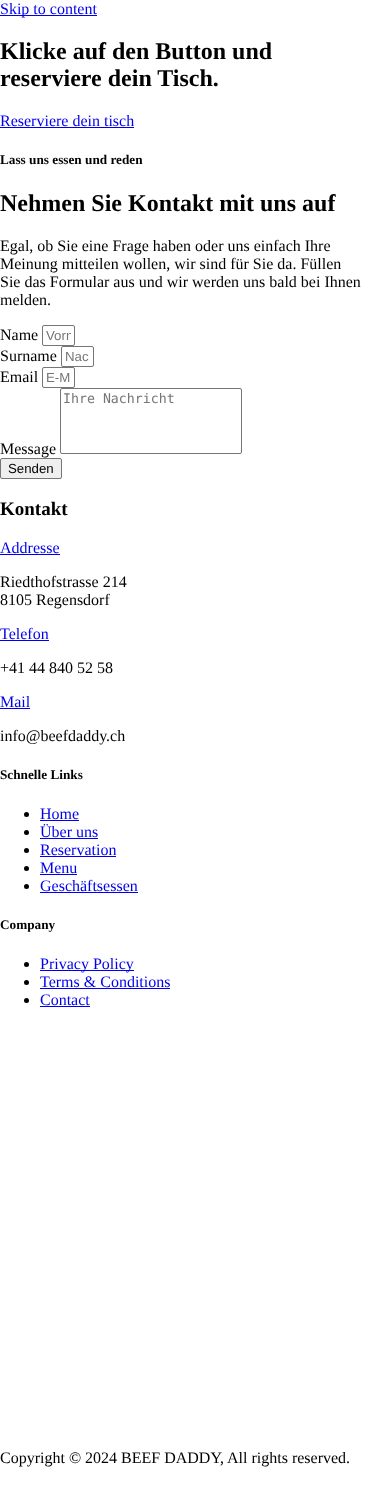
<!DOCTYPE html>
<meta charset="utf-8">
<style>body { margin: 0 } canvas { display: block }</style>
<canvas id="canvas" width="365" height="1493"></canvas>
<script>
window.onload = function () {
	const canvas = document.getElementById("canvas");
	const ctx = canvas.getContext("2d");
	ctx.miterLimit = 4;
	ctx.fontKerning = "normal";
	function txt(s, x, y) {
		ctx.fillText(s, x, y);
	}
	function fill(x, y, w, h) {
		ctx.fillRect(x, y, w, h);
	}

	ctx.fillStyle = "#FFFFFF";
	fill(0, 0, 365, 1493);
	ctx.fillStyle = "#0000EE";
	fill(0, 15, 97, 1);
	fill(0, 127, 134, 1);
	ctx.beginPath();
	ctx.roundRect(42.5, 325.5, 32, 20, 1.5);
	ctx.strokeStyle = "#767676";
	ctx.stroke();
	ctx.beginPath();
	ctx.roundRect(61.5, 346.5, 32, 20, 1.5);
	ctx.stroke();
	ctx.beginPath();
	ctx.roundRect(42.5, 367.5, 32, 20, 1.5);
	ctx.stroke();
	ctx.beginPath();
	ctx.roundRect(60.5, 388.5, 181, 65, 1.5);
	ctx.stroke();
	ctx.fillStyle = "#EFEFEF";
	ctx.beginPath();
	ctx.roundRect(0.5, 458.5, 61, 20, 1.5);
	ctx.fill();
	ctx.stroke();
	ctx.fillStyle = "#0000EE";
	fill(0, 554, 60, 1);
	fill(0, 640, 49, 1);
	fill(0, 708, 30, 1);
	ctx.fillStyle = "#000000";
	ctx.beginPath();
	ctx.arc(26.5, 814.5, 2.5, 0, Math.PI * 2);
	ctx.fill();
	ctx.fillStyle = "#0000EE";
	fill(40, 820, 39, 1);
	ctx.fillStyle = "#000000";
	ctx.beginPath();
	ctx.arc(26.5, 832.5, 2.5, 0, Math.PI * 2);
	ctx.fill();
	ctx.fillStyle = "#0000EE";
	fill(40, 838, 58, 1);
	ctx.fillStyle = "#000000";
	ctx.beginPath();
	ctx.arc(26.5, 850.5, 2.5, 0, Math.PI * 2);
	ctx.fill();
	ctx.fillStyle = "#0000EE";
	fill(40, 856, 76, 1);
	ctx.fillStyle = "#000000";
	ctx.beginPath();
	ctx.arc(26.5, 868.5, 2.5, 0, Math.PI * 2);
	ctx.fill();
	ctx.fillStyle = "#0000EE";
	fill(40, 874, 37, 1);
	ctx.fillStyle = "#000000";
	ctx.beginPath();
	ctx.arc(26.5, 886.5, 2.5, 0, Math.PI * 2);
	ctx.fill();
	ctx.fillStyle = "#0000EE";
	fill(40, 892, 98, 1);
	ctx.fillStyle = "#000000";
	ctx.beginPath();
	ctx.arc(26.5, 964.5, 2.5, 0, Math.PI * 2);
	ctx.fill();
	ctx.fillStyle = "#0000EE";
	fill(40, 970, 94, 1);
	ctx.fillStyle = "#000000";
	ctx.beginPath();
	ctx.arc(26.5, 982.5, 2.5, 0, Math.PI * 2);
	ctx.fill();
	ctx.fillStyle = "#0000EE";
	fill(40, 988, 130, 1);
	ctx.fillStyle = "#000000";
	ctx.beginPath();
	ctx.arc(26.5, 1000.5, 2.5, 0, Math.PI * 2);
	ctx.fill();
	ctx.fillStyle = "#0000EE";
	fill(40, 1006, 50, 1);
	ctx.font = "16px Liberation Serif";
	txt("Skip to content", 0, 14);
	ctx.font = "bold 24px Liberation Serif";
	ctx.fillStyle = "#000000";
	txt("Klicke auf den Button und", 0, 59);
	txt("reserviere dein Tisch.", 0, 86);
	ctx.font = "16px Liberation Serif";
	ctx.fillStyle = "#0000EE";
	txt("Reserviere dein tisch", 0, 126);
	ctx.font = "bold 13.25px Liberation Serif";
	ctx.fillStyle = "#000000";
	txt("Lass uns essen und reden", 0, 164);
	ctx.font = "bold 24px Liberation Serif";
	txt("Nehmen Sie Kontakt mit uns auf", 0, 211);
	ctx.font = "16px Liberation Serif";
	txt("Egal, ob Sie eine Frage haben oder uns einfach Ihre", 0, 251);
	txt("Meinung mitteilen wollen, wir sind für Sie da. Füllen", 0, 269);
	txt("Sie das Formular aus und wir werden uns bald bei Ihnen", 0, 287);
	txt("melden.", 0, 305);
	txt("Name", 0, 340);
	ctx.save();
	ctx.beginPath();
	ctx.rect(46, 328, 25, 15);
	ctx.clip();
	ctx.font = "13.25px Liberation Sans";
	ctx.fillStyle = "#757575";
	txt("Vorn", 46, 340);
	ctx.restore();
	txt("Surname", 0, 361);
	ctx.font = "13.25px Liberation Sans";
	ctx.fillStyle = "#757575";
	txt("Nac", 65, 361);
	ctx.font = "16px Liberation Serif";
	ctx.fillStyle = "#000000";
	txt("Email", 0, 382);
	ctx.font = "13.25px Liberation Sans";
	ctx.fillStyle = "#757575";
	txt("E-M", 46, 382);
	ctx.font = "13.25px DejaVu Sans Mono";
	txt("Ihre Nachricht", 63, 403);
	ctx.font = "16px Liberation Serif";
	ctx.fillStyle = "#000000";
	txt("Message", 0, 454);
	ctx.font = "13.25px Liberation Sans";
	txt("Senden", 8, 473);
	ctx.font = "bold 19px Liberation Serif";
	txt("Kontakt", 0, 515);
	ctx.font = "16px Liberation Serif";
	ctx.fillStyle = "#0000EE";
	txt("Addresse", 0, 553);
	ctx.fillStyle = "#000000";
	txt("Riedthofstrasse 214", 0, 587);
	txt("8105 Regensdorf", 0, 605);
	ctx.fillStyle = "#0000EE";
	txt("Telefon", 0, 639);
	ctx.fillStyle = "#000000";
	txt("+41 44 840 52 58", 0, 673);
	ctx.fillStyle = "#0000EE";
	txt("Mail", 0, 707);
	ctx.fillStyle = "#000000";
	txt("info@beefdaddy.ch", 0, 741);
	ctx.font = "bold 13.25px Liberation Serif";
	txt("Schnelle Links", 0, 779);
	ctx.font = "16px Liberation Serif";
	ctx.fillStyle = "#0000EE";
	txt("Home", 40, 819);
	txt("Über uns", 40, 837);
	txt("Reservation", 40, 855);
	txt("Menu", 40, 873);
	txt("Geschäftsessen", 40, 891);
	ctx.font = "bold 13.25px Liberation Serif";
	ctx.fillStyle = "#000000";
	txt("Company", 0, 929);
	ctx.font = "16px Liberation Serif";
	ctx.fillStyle = "#0000EE";
	txt("Privacy Policy", 40, 969);
	txt("Terms & Conditions", 40, 987);
	txt("Contact", 40, 1005);
	ctx.fillStyle = "#000000";
	txt("Copyright © 2024 BEEF DADDY, All rights reserved.", 0, 1463);
};
</script>
